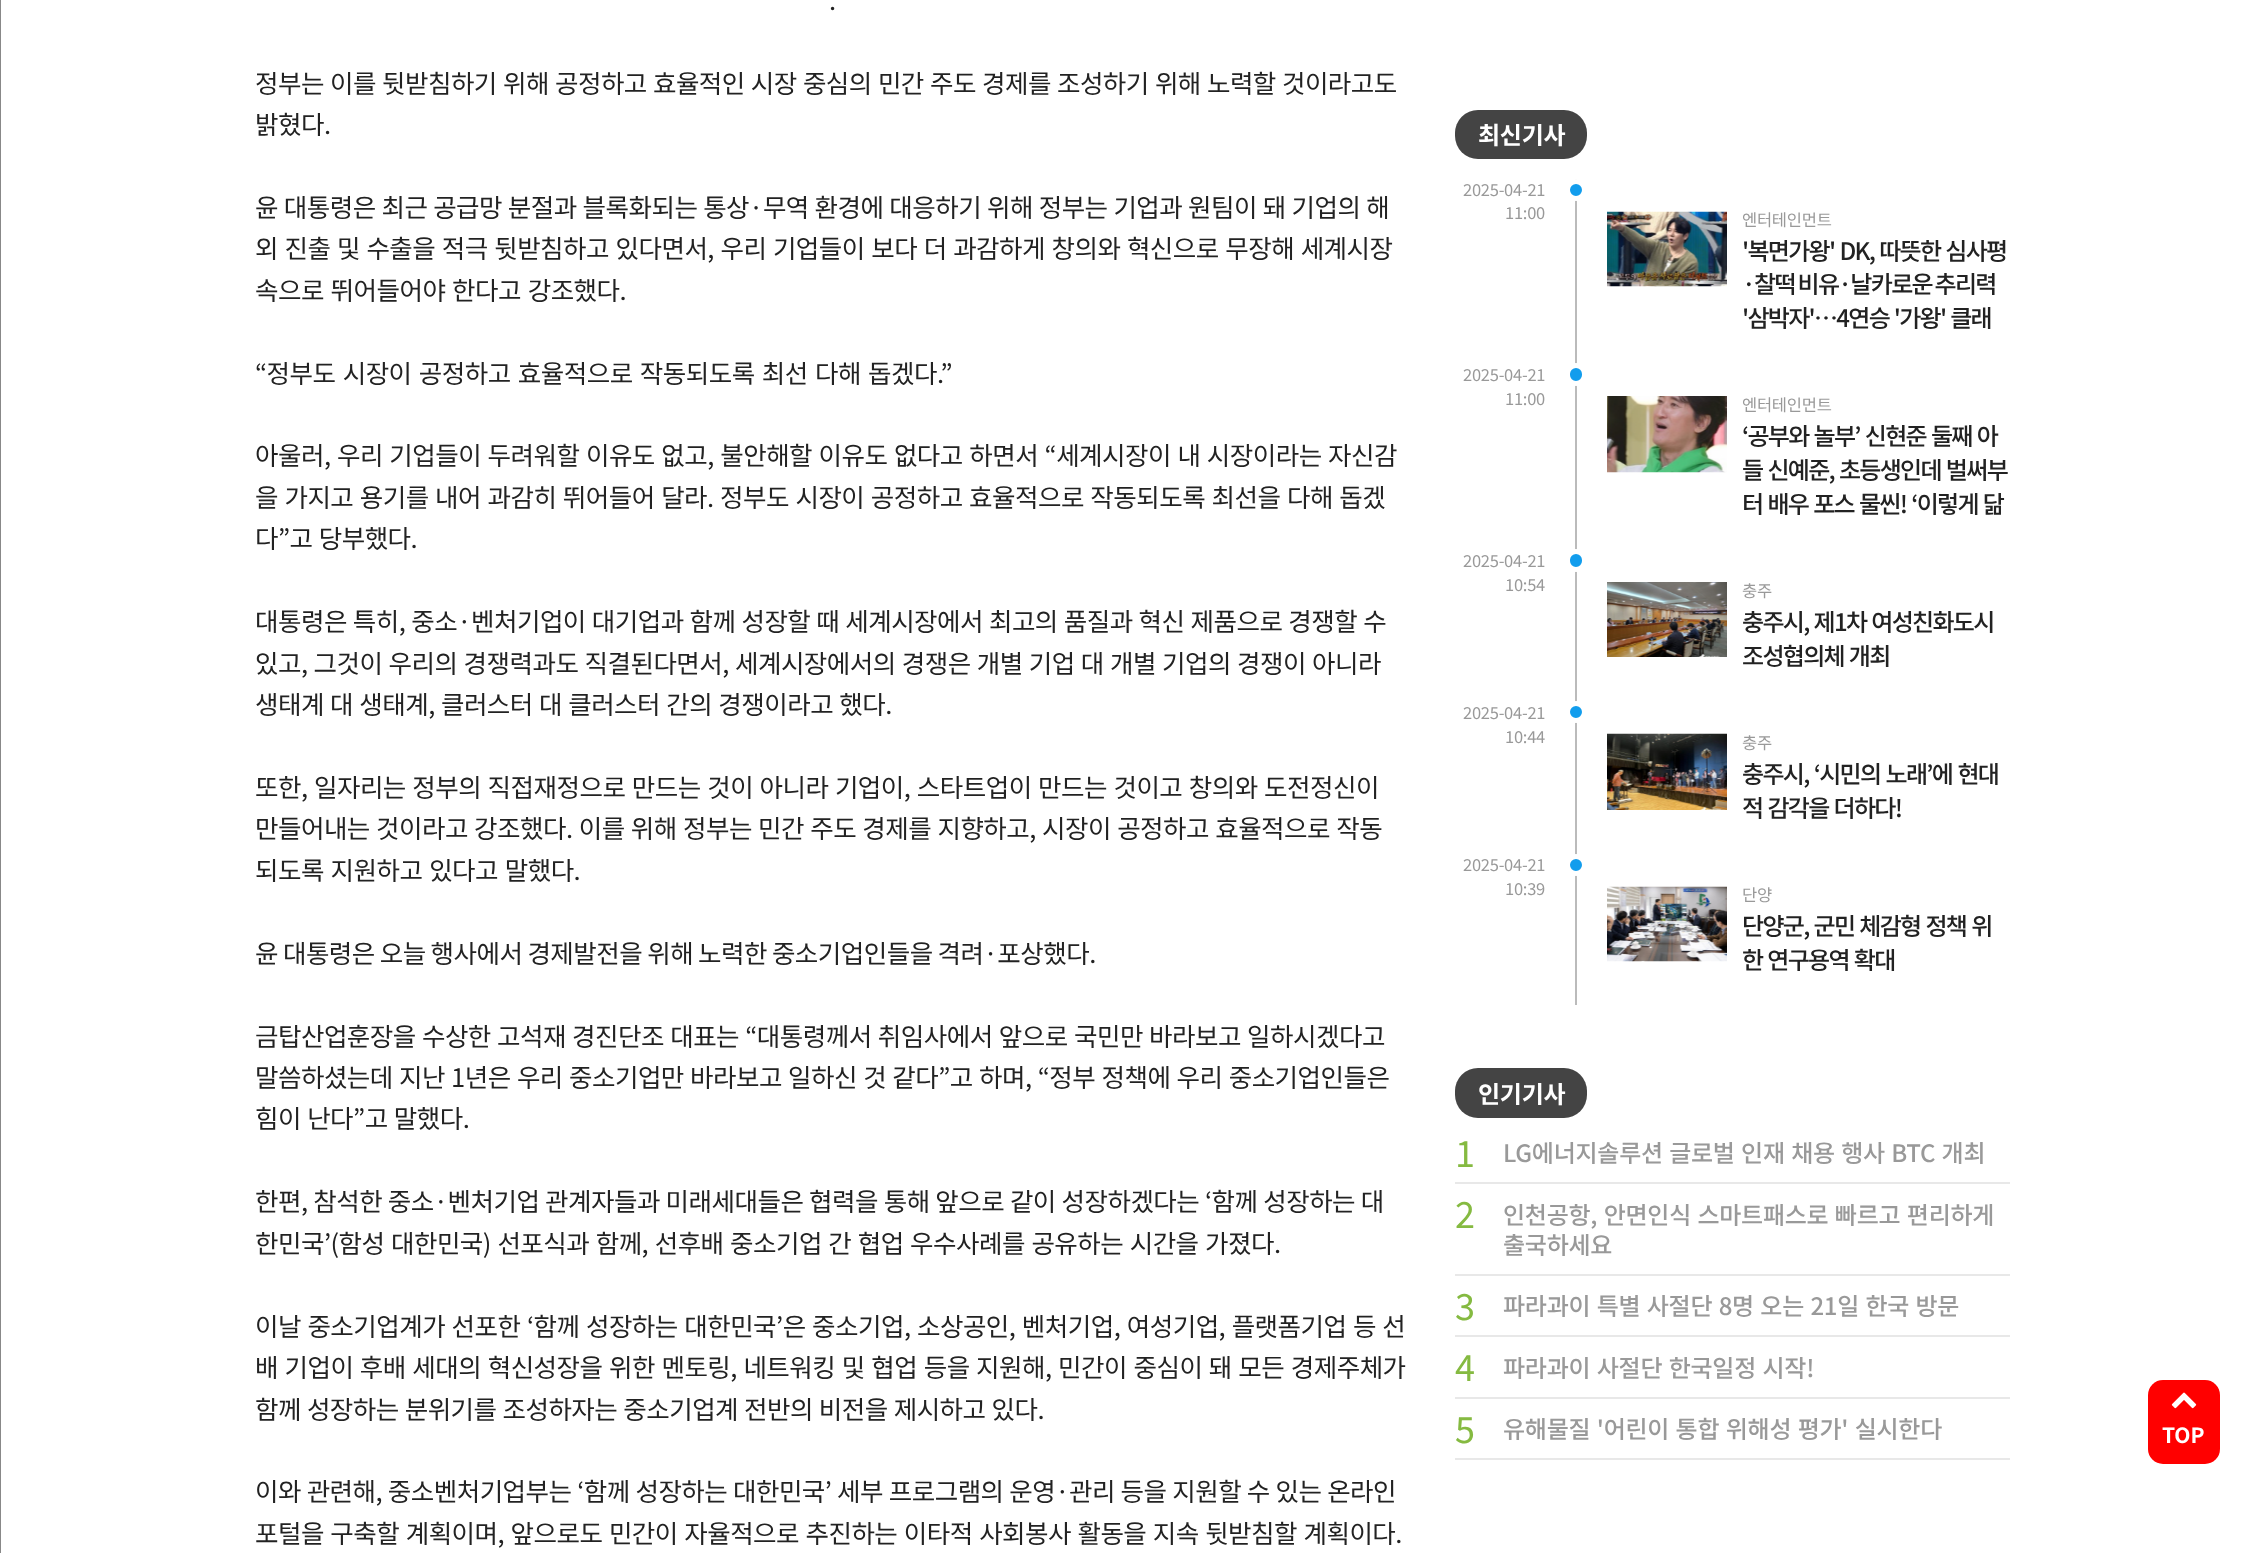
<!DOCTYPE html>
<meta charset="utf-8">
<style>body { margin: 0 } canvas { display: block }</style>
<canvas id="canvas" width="2265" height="1553"></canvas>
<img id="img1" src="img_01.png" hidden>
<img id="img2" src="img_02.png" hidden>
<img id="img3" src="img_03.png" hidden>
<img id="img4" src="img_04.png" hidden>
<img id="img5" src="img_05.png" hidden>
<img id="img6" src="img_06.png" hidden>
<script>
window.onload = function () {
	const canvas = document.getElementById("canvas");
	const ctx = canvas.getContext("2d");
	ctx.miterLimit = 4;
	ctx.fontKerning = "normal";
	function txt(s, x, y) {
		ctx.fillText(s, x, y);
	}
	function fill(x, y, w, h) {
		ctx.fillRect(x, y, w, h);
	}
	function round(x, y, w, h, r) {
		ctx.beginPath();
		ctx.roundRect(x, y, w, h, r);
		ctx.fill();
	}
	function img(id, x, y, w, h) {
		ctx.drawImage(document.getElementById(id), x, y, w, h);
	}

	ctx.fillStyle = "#FFFFFF";
	fill(0, 0, 2265, 1553);
	ctx.fillStyle = "#888888";
	fill(0, 0, 1, 1553);
	ctx.fillStyle = "#444444";
	round(1455, 110, 132, 49, 23);
	ctx.fillStyle = "#BBBBBB";
	fill(1575, 179, 2, 826);
	ctx.fillStyle = "#129DED";
	ctx.beginPath();
	ctx.arc(1576, 190, 8.5, 0, Math.PI * 2);
	ctx.fill();
	ctx.strokeStyle = "#FFFFFF";
	ctx.lineWidth = 5;
	ctx.stroke();
	img("img1", 1607, 211, 120, 76);
	ctx.beginPath();
	ctx.roundRect(1567.5, 365.5, 17, 18, 8.5);
	ctx.fill();
	ctx.stroke();
	img("img2", 1607, 396, 120, 77);
	ctx.beginPath();
	ctx.roundRect(1567.5, 551.5, 17, 18, 8.5);
	ctx.fill();
	ctx.stroke();
	img("img3", 1607, 582, 120, 75);
	ctx.beginPath();
	ctx.arc(1576, 712, 8.5, 0, Math.PI * 2);
	ctx.fill();
	ctx.stroke();
	img("img4", 1607, 733, 120, 77);
	ctx.beginPath();
	ctx.arc(1576, 865, 8.5, 0, Math.PI * 2);
	ctx.fill();
	ctx.stroke();
	img("img5", 1607, 886, 120, 76);
	ctx.fillStyle = "#444444";
	round(1455, 1068, 132, 50, 23);
	ctx.fillStyle = "#E8E8E8";
	fill(1455, 1182, 555, 2);
	fill(1455, 1274, 555, 2);
	fill(1455, 1335, 555, 2);
	fill(1455, 1397, 555, 2);
	fill(1455, 1458, 555, 2);
	ctx.fillStyle = "#FF0000";
	round(2148, 1380, 72, 84, 15);
	img("img6", 2171, 1392, 26, 17);
	ctx.letterSpacing = "-0.5px";
	ctx.wordSpacing = "1px";
	ctx.font = "25.5px Noto Sans KR";
	ctx.fillStyle = "#222222";
	txt(".", 829, 10);
	ctx.wordSpacing = "0.9px";
	txt("정부는 이를 뒷받침하기 위해 공정하고 효율적인 시장 중심의 민간 주도 경제를 조성하기 위해 노력할 것이라고도", 255, 93);
	ctx.wordSpacing = "0px";
	txt("밝혔다.", 255, 134);
	ctx.wordSpacing = "0.6px";
	txt("윤 대통령은 최근 공급망 분절과 블록화되는 통상·무역 환경에 대응하기 위해 정부는 기업과 원팀이 돼 기업의 해", 255, 217);
	ctx.wordSpacing = "1.3px";
	txt("외 진출 및 수출을 적극 뒷받침하고 있다면서, 우리 기업들이 보다 더 과감하게 창의와 혁신으로 무장해 세계시장", 255, 258);
	ctx.wordSpacing = "1.5px";
	txt("속으로 뛰어들어야 한다고 강조했다.", 255, 300);
	ctx.wordSpacing = "2px";
	txt("“정부도 시장이 공정하고 효율적으로 작동되도록 최선 다해 돕겠다.”", 255, 383);
	ctx.wordSpacing = "1.25px";
	txt("아울러, 우리 기업들이 두려워할 이유도 없고, 불안해할 이유도 없다고 하면서 “세계시장이 내 시장이라는 자신감", 255, 465);
	txt("을 가지고 용기를 내어 과감히 뛰어들어 달라. 정부도 시장이 공정하고 효율적으로 작동되도록 최선을 다해 돕겠", 255, 507);
	ctx.wordSpacing = "1px";
	txt("다”고 당부했다.", 255, 548);
	ctx.wordSpacing = "0.75px";
	txt("대통령은 특히, 중소·벤처기업이 대기업과 함께 성장할 때 세계시장에서 최고의 품질과 혁신 제품으로 경쟁할 수", 255, 631);
	ctx.wordSpacing = "0.9px";
	txt("있고, 그것이 우리의 경쟁력과도 직결된다면서, 세계시장에서의 경쟁은 개별 기업 대 개별 기업의 경쟁이 아니라", 255, 673);
	ctx.wordSpacing = "1px";
	txt("생태계 대 생태계, 클러스터 대 클러스터 간의 경쟁이라고 했다.", 255, 714);
	ctx.wordSpacing = "1.25px";
	txt("또한, 일자리는 정부의 직접재정으로 만드는 것이 아니라 기업이, 스타트업이 만드는 것이고 창의와 도전정신이", 255, 797);
	ctx.wordSpacing = "1px";
	txt("만들어내는 것이라고 강조했다. 이를 위해 정부는 민간 주도 경제를 지향하고, 시장이 공정하고 효율적으로 작동", 255, 838);
	ctx.wordSpacing = "1.5px";
	txt("되도록 지원하고 있다고 말했다.", 255, 880);
	ctx.wordSpacing = "-0.25px";
	txt("윤 대통령은 오늘 행사에서 경제발전을 위해 노력한 중소기업인들을 격려·포상했다.", 255, 963);
	ctx.wordSpacing = "1px";
	txt("금탑산업훈장을 수상한 고석재 경진단조 대표는 “대통령께서 취임사에서 앞으로 국민만 바라보고 일하시겠다고", 255, 1046);
	txt("말씀하셨는데 지난 1년은 우리 중소기업만 바라보고 일하신 것 같다”고 하며, “정부 정책에 우리 중소기업인들은", 255, 1087);
	txt("힘이 난다”고 말했다.", 255, 1128);
	ctx.wordSpacing = "0.5px";
	txt("한편, 참석한 중소·벤처기업 관계자들과 미래세대들은 협력을 통해 앞으로 같이 성장하겠다는 ‘함께 성장하는 대", 255, 1211);
	ctx.wordSpacing = "1.25px";
	txt("한민국’(함성 대한민국) 선포식과 함께, 선후배 중소기업 간 협업 우수사례를 공유하는 시간을 가졌다.", 255, 1253);
	txt("이날 중소기업계가 선포한 ‘함께 성장하는 대한민국’은 중소기업, 소상공인, 벤처기업, 여성기업, 플랫폼기업 등 선", 255, 1336);
	ctx.wordSpacing = "1.3px";
	txt("배 기업이 후배 세대의 혁신성장을 위한 멘토링, 네트워킹 및 협업 등을 지원해, 민간이 중심이 돼 모든 경제주체가", 255, 1377);
	ctx.wordSpacing = "0.75px";
	txt("함께 성장하는 분위기를 조성하자는 중소기업계 전반의 비전을 제시하고 있다.", 255, 1419);
	ctx.wordSpacing = "0.5px";
	txt("이와 관련해, 중소벤처기업부는 ‘함께 성장하는 대한민국’ 세부 프로그램의 운영·관리 등을 지원할 수 있는 온라인", 255, 1501);
	ctx.wordSpacing = "1.25px";
	txt("포털을 구축할 계획이며, 앞으로도 민간이 자율적으로 추진하는 이타적 사회봉사 활동을 지속 뒷받침할 계획이다.", 255, 1543);
	ctx.letterSpacing = "-0.25px";
	ctx.wordSpacing = "0px";
	ctx.font = "bold 24px Noto Sans KR";
	ctx.fillStyle = "#FFFFFF";
	txt("최신기사", 1478, 144);
	ctx.font = "16.5px Noto Sans KR";
	ctx.fillStyle = "#999999";
	txt("2025-04-21", 1463, 196);
	txt("11:00", 1505, 219);
	txt("엔터테인먼트", 1742, 226);
	ctx.letterSpacing = "-1.7px";
	ctx.wordSpacing = "1.3px";
	ctx.font = "500 24px Noto Sans KR";
	ctx.fillStyle = "#222222";
	txt("'복면가왕' DK, 따뜻한 심사평", 1742, 260);
	ctx.wordSpacing = "-1px";
	txt("·찰떡 비유·날카로운 추리력", 1742, 293);
	ctx.wordSpacing = "1px";
	txt("'삼박자'…4연승 '가왕' 클래", 1742, 327);
	ctx.letterSpacing = "-0.25px";
	ctx.wordSpacing = "0px";
	ctx.font = "16.5px Noto Sans KR";
	ctx.fillStyle = "#999999";
	txt("2025-04-21", 1463, 381);
	txt("11:00", 1505, 405);
	txt("엔터테인먼트", 1742, 411);
	ctx.letterSpacing = "-1.7px";
	ctx.wordSpacing = "1.3px";
	ctx.font = "500 24px Noto Sans KR";
	ctx.fillStyle = "#222222";
	txt("‘공부와 놀부’ 신현준 둘째 아", 1742, 445);
	txt("들 신예준, 초등생인데 벌써부", 1742, 479);
	txt("터 배우 포스 물씬! ‘이렇게 닮", 1742, 513);
	ctx.letterSpacing = "-0.25px";
	ctx.wordSpacing = "0px";
	ctx.font = "16.5px Noto Sans KR";
	ctx.fillStyle = "#999999";
	txt("2025-04-21", 1463, 567);
	txt("10:54", 1505, 591);
	txt("충주", 1742, 597);
	ctx.letterSpacing = "-1.7px";
	ctx.wordSpacing = "1.3px";
	ctx.font = "500 24px Noto Sans KR";
	ctx.fillStyle = "#222222";
	txt("충주시, 제1차 여성친화도시", 1742, 631);
	ctx.wordSpacing = "1.25px";
	txt("조성협의체 개최", 1742, 665);
	ctx.letterSpacing = "-0.25px";
	ctx.wordSpacing = "0px";
	ctx.font = "16.5px Noto Sans KR";
	ctx.fillStyle = "#999999";
	txt("2025-04-21", 1463, 719);
	txt("10:44", 1505, 743);
	txt("충주", 1742, 749);
	ctx.letterSpacing = "-1.7px";
	ctx.wordSpacing = "1.5px";
	ctx.font = "500 24px Noto Sans KR";
	ctx.fillStyle = "#222222";
	txt("충주시, ‘시민의 노래’에 현대", 1742, 783);
	ctx.wordSpacing = "1.3px";
	txt("적 감각을 더하다!", 1742, 817);
	ctx.letterSpacing = "-0.25px";
	ctx.wordSpacing = "0px";
	ctx.font = "16.5px Noto Sans KR";
	ctx.fillStyle = "#999999";
	txt("2025-04-21", 1463, 871);
	txt("10:39", 1505, 895);
	txt("단양", 1742, 901);
	ctx.letterSpacing = "-1.7px";
	ctx.wordSpacing = "1.3px";
	ctx.font = "500 24px Noto Sans KR";
	ctx.fillStyle = "#222222";
	txt("단양군, 군민 체감형 정책 위", 1742, 935);
	ctx.wordSpacing = "1.25px";
	txt("한 연구용역 확대", 1742, 969);
	ctx.letterSpacing = "-0.25px";
	ctx.wordSpacing = "0px";
	ctx.font = "bold 24px Noto Sans KR";
	ctx.fillStyle = "#FFFFFF";
	txt("인기기사", 1478, 1103);
	ctx.font = "36px Noto Sans KR";
	ctx.fillStyle = "#85BA41";
	txt("1", 1455, 1167);
	ctx.wordSpacing = "1.25px";
	ctx.font = "500 24px Noto Sans KR";
	ctx.fillStyle = "#999999";
	txt("LG에너지솔루션 글로벌 인재 채용 행사 BTC 개최", 1503, 1162);
	ctx.wordSpacing = "0px";
	ctx.font = "36px Noto Sans KR";
	ctx.fillStyle = "#85BA41";
	txt("2", 1455, 1228);
	ctx.wordSpacing = "1.3px";
	ctx.font = "500 24px Noto Sans KR";
	ctx.fillStyle = "#999999";
	txt("인천공항, 안면인식 스마트패스로 빠르고 편리하게", 1503, 1224);
	ctx.wordSpacing = "0px";
	txt("출국하세요", 1503, 1254);
	ctx.font = "36px Noto Sans KR";
	ctx.fillStyle = "#85BA41";
	txt("3", 1455, 1320);
	ctx.wordSpacing = "1.25px";
	ctx.font = "500 24px Noto Sans KR";
	ctx.fillStyle = "#999999";
	txt("파라과이 특별 사절단 8명 오는 21일 한국 방문", 1503, 1315);
	ctx.wordSpacing = "0px";
	ctx.font = "36px Noto Sans KR";
	ctx.fillStyle = "#85BA41";
	txt("4", 1455, 1381);
	ctx.wordSpacing = "1.3px";
	ctx.font = "500 24px Noto Sans KR";
	ctx.fillStyle = "#999999";
	txt("파라과이 사절단 한국일정 시작!", 1503, 1377);
	ctx.wordSpacing = "0px";
	ctx.font = "36px Noto Sans KR";
	ctx.fillStyle = "#85BA41";
	txt("5", 1455, 1443);
	ctx.wordSpacing = "1.3px";
	ctx.font = "500 24px Noto Sans KR";
	ctx.fillStyle = "#999999";
	txt("유해물질 '어린이 통합 위해성 평가' 실시한다", 1503, 1438);
	ctx.letterSpacing = "0px";
	ctx.wordSpacing = "0px";
	ctx.font = "bold 21px Noto Sans KR";
	ctx.fillStyle = "#FFFFFF";
	txt("TOP", 2162, 1443);
};
</script>
